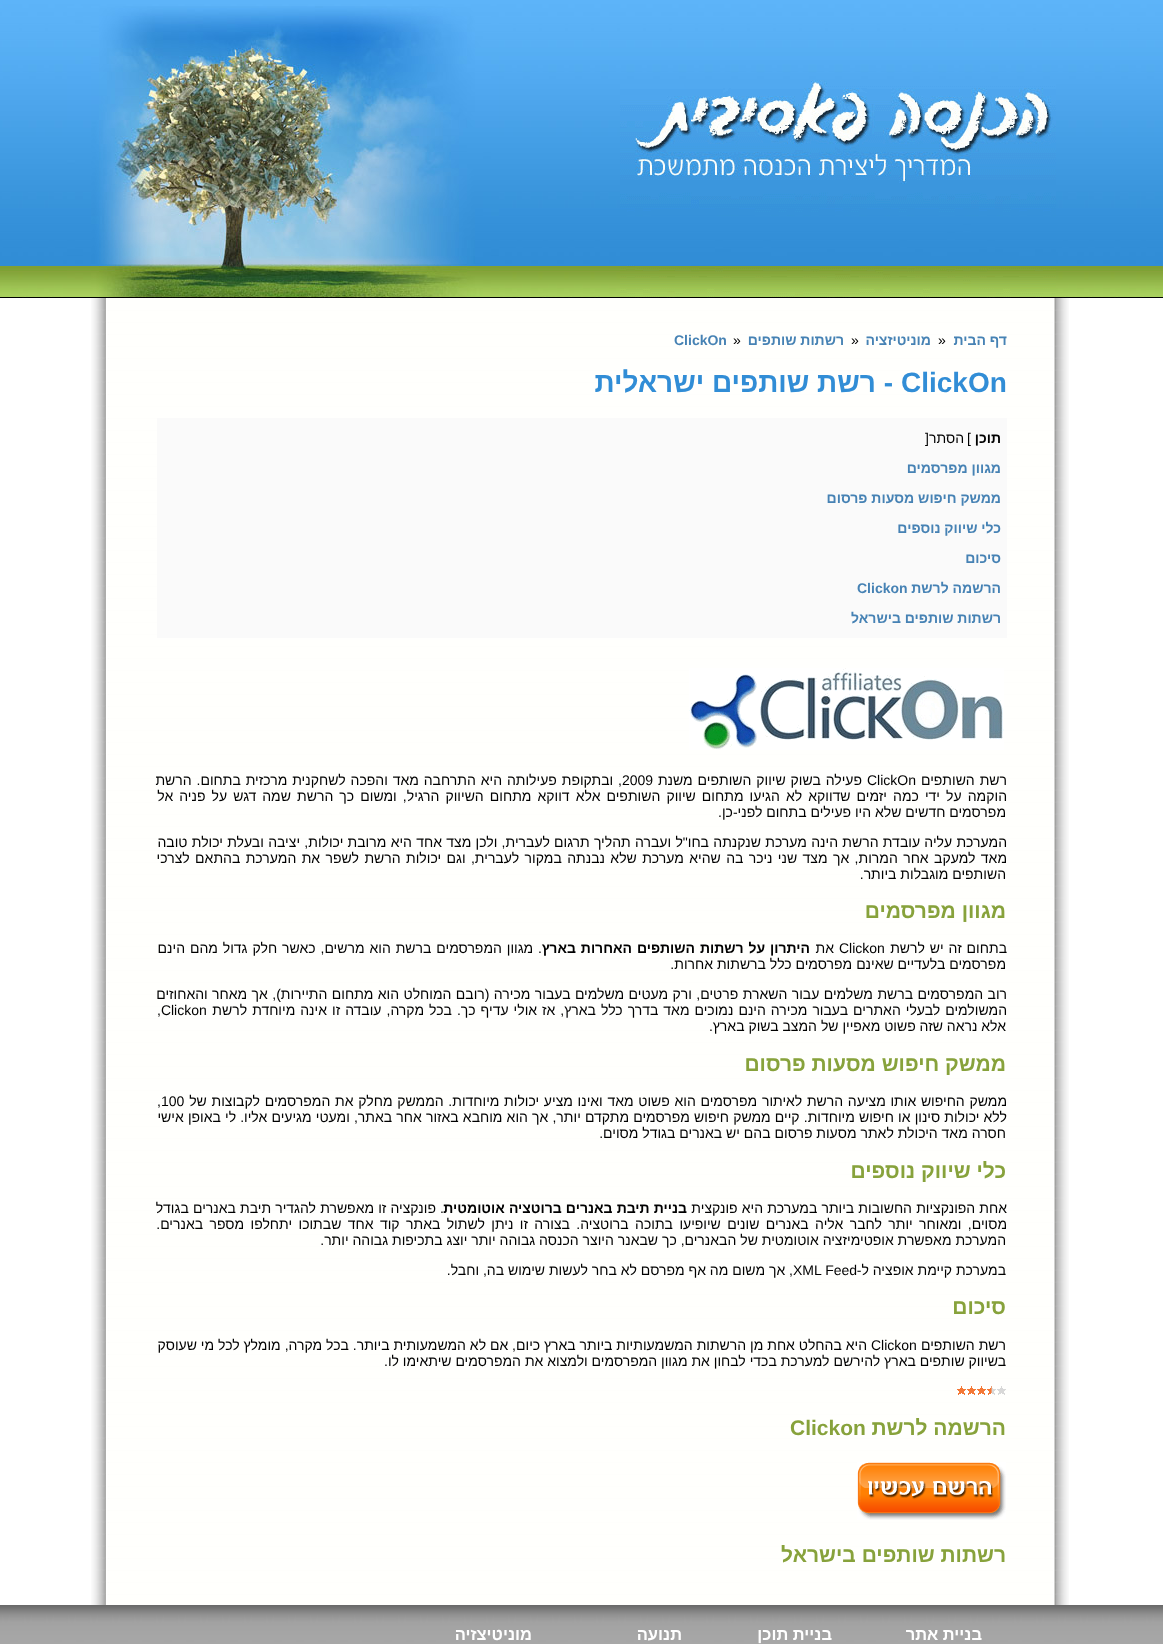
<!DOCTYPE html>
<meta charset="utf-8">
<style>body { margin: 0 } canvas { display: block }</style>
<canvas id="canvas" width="1163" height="1644"></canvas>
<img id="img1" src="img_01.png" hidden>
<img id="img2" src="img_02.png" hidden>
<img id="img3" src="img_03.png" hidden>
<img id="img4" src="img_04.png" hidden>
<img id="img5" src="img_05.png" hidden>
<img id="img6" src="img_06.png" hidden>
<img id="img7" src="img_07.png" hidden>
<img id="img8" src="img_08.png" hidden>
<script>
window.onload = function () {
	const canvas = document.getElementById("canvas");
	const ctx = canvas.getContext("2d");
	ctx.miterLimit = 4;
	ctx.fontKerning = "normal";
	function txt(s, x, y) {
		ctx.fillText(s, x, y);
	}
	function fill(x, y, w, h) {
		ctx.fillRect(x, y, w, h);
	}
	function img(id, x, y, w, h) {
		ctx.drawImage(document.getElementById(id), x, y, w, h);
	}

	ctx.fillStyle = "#FFFFFF";
	fill(0, 0, 1163, 1644);
	img("img1", 0, 0, 1163, 298);
	img("img2", 620, 80, 436, 218);
	img("img3", 67, 6, 432, 292);
	img("img4", 91, 298, 978, 1307);
	ctx.fillStyle = "#FAFAFA";
	fill(157, 418, 850, 220);
	img("img5", 689, 668, 315, 82);
	img("img6", 957, 1386, 49, 9);
	img("img7", 857, 1462, 149, 58);
	img("img8", 0, 1605, 1163, 39);
	ctx.direction = "rtl";
	ctx.font = "bold 14px Liberation Sans";
	ctx.fillStyle = "#4682B4";
	txt("דף הבית", 1007, 345);
	ctx.direction = "ltr";
	ctx.font = "14px Liberation Sans";
	ctx.fillStyle = "#000000";
	txt("»", 938, 345);
	ctx.direction = "rtl";
	ctx.font = "bold 14px Liberation Sans";
	ctx.fillStyle = "#4682B4";
	txt("מוניטיזציה", 931, 345);
	ctx.direction = "ltr";
	ctx.font = "14px Liberation Sans";
	ctx.fillStyle = "#000000";
	txt("»", 851, 345);
	ctx.direction = "rtl";
	ctx.font = "bold 14px Liberation Sans";
	ctx.fillStyle = "#4682B4";
	txt("רשתות שותפים", 844, 345);
	ctx.direction = "ltr";
	ctx.font = "14px Liberation Sans";
	ctx.fillStyle = "#000000";
	txt("»", 733, 345);
	ctx.font = "bold 14px Liberation Sans";
	ctx.fillStyle = "#4682B4";
	txt("ClickOn", 674, 345);
	ctx.font = "bold 28px Liberation Sans";
	ctx.fillStyle = "#318DD6";
	txt("ClickOn", 901, 392);
	ctx.direction = "rtl";
	txt("- רשת שותפים ישראלית", 893, 392);
	ctx.font = "bold 14px Liberation Sans";
	ctx.fillStyle = "#000000";
	txt("תוכן", 1001, 443);
	ctx.direction = "ltr";
	ctx.font = "14px Liberation Sans";
	txt("[", 967, 443);
	ctx.direction = "rtl";
	txt("הסתר", 964, 443);
	ctx.direction = "ltr";
	txt("]", 925, 443);
	ctx.direction = "rtl";
	ctx.font = "bold 14px Liberation Sans";
	ctx.fillStyle = "#4682B4";
	txt("מגוון מפרסמים", 1001, 473);
	txt("ממשק חיפוש מסעות פרסום", 1001, 503);
	txt("כלי שיווק נוספים", 1001, 533);
	txt("סיכום", 1001, 563);
	txt("הרשמה לרשת", 1001, 593);
	ctx.direction = "ltr";
	txt("Clickon", 857, 593);
	ctx.direction = "rtl";
	txt("רשתות שותפים בישראל", 1001, 623);
	ctx.wordSpacing = "1px";
	ctx.font = "14px Liberation Sans";
	ctx.fillStyle = "#000000";
	txt("רשת השותפים", 1007, 785);
	ctx.wordSpacing = "0px";
	ctx.direction = "ltr";
	txt("ClickOn", 867, 785);
	ctx.wordSpacing = "1px";
	ctx.direction = "rtl";
	txt("פעילה בשוק שיווק השותפים משנת", 862, 785);
	ctx.wordSpacing = "0px";
	ctx.direction = "ltr";
	txt("2009", 622, 785);
	ctx.wordSpacing = "1px";
	ctx.direction = "rtl";
	txt(", ובתקופת פעילותה היא התרחבה מאד והפכה לשחקנית מרכזית בתחום. הרשת", 622, 785);
	ctx.wordSpacing = "2.2px";
	txt("הוקמה על ידי כמה יזמים שדווקא לא הגיעו מתחום שיווק השותפים אלא דווקא מתחום השיווק הרגיל, ומשום כך הרשת שמה דגש על פניה אל", 1007, 801);
	ctx.wordSpacing = "0px";
	txt("מפרסמים חדשים שלא היו פעילים בתחום לפני-כן.", 1006, 817);
	ctx.wordSpacing = "0.4px";
	txt("המערכת עליה עובדת הרשת הינה מערכת שנקנתה בחו\"ל ועברה תהליך תרגום לעברית, ולכן מצד אחד היא מרובת יכולות, יציבה ובעלת יכולת טובה", 1007, 847);
	ctx.wordSpacing = "1.5px";
	txt("מאד למעקב אחר המרות, אך מצד שני ניכר בה שהיא מערכת שלא נבנתה במקור לעברית, וגם יכולות הרשת לשפר את המערכת בהתאם לצרכי", 1007, 863);
	ctx.wordSpacing = "0px";
	txt("השותפים מוגבלות ביותר.", 1006, 879);
	ctx.font = "bold 21px Liberation Sans";
	ctx.fillStyle = "#87A23B";
	txt("מגוון מפרסמים", 1006, 918);
	ctx.wordSpacing = "1px";
	ctx.font = "14px Liberation Sans";
	ctx.fillStyle = "#000000";
	txt("בתחום זה יש לרשת", 1007, 953);
	ctx.wordSpacing = "0px";
	ctx.direction = "ltr";
	txt("Clickon", 839, 953);
	ctx.direction = "rtl";
	txt("את", 834, 953);
	ctx.wordSpacing = "1px";
	ctx.font = "bold 14px Liberation Sans";
	txt("היתרון על רשתות השותפים האחרות בארץ", 810, 953);
	ctx.font = "14px Liberation Sans";
	txt(". מגוון המפרסמים ברשת הוא מרשים, כאשר חלק גדול מהם הינם", 542, 953);
	ctx.wordSpacing = "0px";
	txt("מפרסמים בלעדיים שאינם מפרסמים כלל ברשתות אחרות.", 1006, 969);
	ctx.wordSpacing = "0.5px";
	txt("רוב המפרסמים ברשת משלמים עבור השארת פרטים, ורק מעטים משלמים בעבור מכירה (רובם המוחלט הוא מתחום התיירות), אך מאחר והאחוזים", 1007, 999);
	ctx.wordSpacing = "1.1px";
	txt("המשולמים לבעלי האתרים בעבור מכירה הינם נמוכים מאד בדרך כלל בארץ, אז אולי עדיף כך. בכל מקרה, עובדה זו אינה מיוחדת לרשת", 1007, 1015);
	ctx.wordSpacing = "0px";
	ctx.direction = "ltr";
	txt(",Clickon", 157, 1015);
	ctx.direction = "rtl";
	txt("אלא נראה שזה פשוט מאפיין של המצב בשוק בארץ.", 1006, 1031);
	ctx.font = "bold 21px Liberation Sans";
	ctx.fillStyle = "#87A23B";
	txt("ממשק חיפוש מסעות פרסום", 1006, 1071);
	ctx.wordSpacing = "0.8px";
	ctx.font = "14px Liberation Sans";
	ctx.fillStyle = "#000000";
	txt("ממשק החיפוש אותו מציעה הרשת לאיתור מפרסמים הוא פשוט מאד ואינו מציע יכולות מיוחדות. הממשק מחלק את המפרסמים לקבוצות של", 1007, 1106);
	ctx.wordSpacing = "0px";
	ctx.direction = "ltr";
	txt(",100", 157, 1106);
	ctx.wordSpacing = "0.25px";
	ctx.direction = "rtl";
	txt("ללא יכולות סינון או חיפוש מיוחדות. קיים ממשק חיפוש מפרסמים מתקדם יותר, אך הוא מוחבא באזור אחר באתר, ומעטי מגיעים אליו. לי באופן אישי", 1007, 1122);
	ctx.wordSpacing = "0px";
	txt("חסרה מאד היכולת לאתר מסעות פרסום בהם יש באנרים בגודל מסוים.", 1006, 1138);
	ctx.font = "bold 21px Liberation Sans";
	ctx.fillStyle = "#87A23B";
	txt("כלי שיווק נוספים", 1006, 1178);
	ctx.wordSpacing = "0.25px";
	ctx.font = "14px Liberation Sans";
	ctx.fillStyle = "#000000";
	txt("אחת הפונקציות החשובות ביותר במערכת היא פונקצית", 1007, 1213);
	ctx.font = "bold 14px Liberation Sans";
	txt("בניית תיבת באנרים ברוטציה אוטומטית", 687, 1213);
	ctx.font = "14px Liberation Sans";
	txt(". פונקציה זו מאפשרת להגדיר תיבת באנרים בגודל", 444, 1213);
	ctx.wordSpacing = "2.5px";
	txt("מסוים, ומאוחר יותר לחבר אליה באנרים שונים שיופיעו בתוכה ברוטציה. בצורה זו ניתן לשתול באתר קוד אחד שבתוכו יתחלפו מספר באנרים.", 1007, 1229);
	ctx.wordSpacing = "0px";
	txt("המערכת מאפשרת אופטימיזציה אוטומטית של הבאנרים, כך שבאנר היוצר הכנסה גבוהה יותר יוצג בתכיפות גבוהה יותר.", 1006, 1245);
	txt("במערכת קיימת אופציה ל-", 1006, 1275);
	ctx.direction = "ltr";
	txt("XML Feed", 793, 1275);
	ctx.direction = "rtl";
	txt(", אך משום מה אף מפרסם לא בחר לעשות שימוש בה, וחבל.", 793, 1275);
	ctx.font = "bold 21px Liberation Sans";
	ctx.fillStyle = "#87A23B";
	txt("סיכום", 1006, 1314);
	ctx.font = "14px Liberation Sans";
	ctx.fillStyle = "#000000";
	txt("רשת השותפים", 1006, 1350);
	ctx.direction = "ltr";
	txt("Clickon", 871, 1350);
	ctx.direction = "rtl";
	txt("היא בהחלט אחת מן הרשתות המשמעותיות ביותר בארץ כיום, אם לא המשמעותית ביותר. בכל מקרה, מומלץ לכל מי שעוסק", 867, 1350);
	txt("בשיווק שותפים בארץ להירשם למערכת בכדי לבחון את מגוון המפרסמים ולמצוא את המפרסמים שיתאימו לו.", 1006, 1366);
	ctx.font = "bold 21px Liberation Sans";
	ctx.fillStyle = "#87A23B";
	txt("הרשמה לרשת", 1006, 1435);
	ctx.direction = "ltr";
	txt("Clickon", 790, 1435);
	ctx.direction = "rtl";
	txt("רשתות שותפים בישראל", 1006, 1562);
	ctx.font = "bold 16.5px Liberation Sans";
	ctx.fillStyle = "#FFFFFF";
	txt("בניית אתר", 982, 1640);
	txt("בניית תוכן", 832, 1640);
	txt("תנועה", 682, 1640);
	txt("מוניטיצזיה", 532, 1640);
};
</script>
